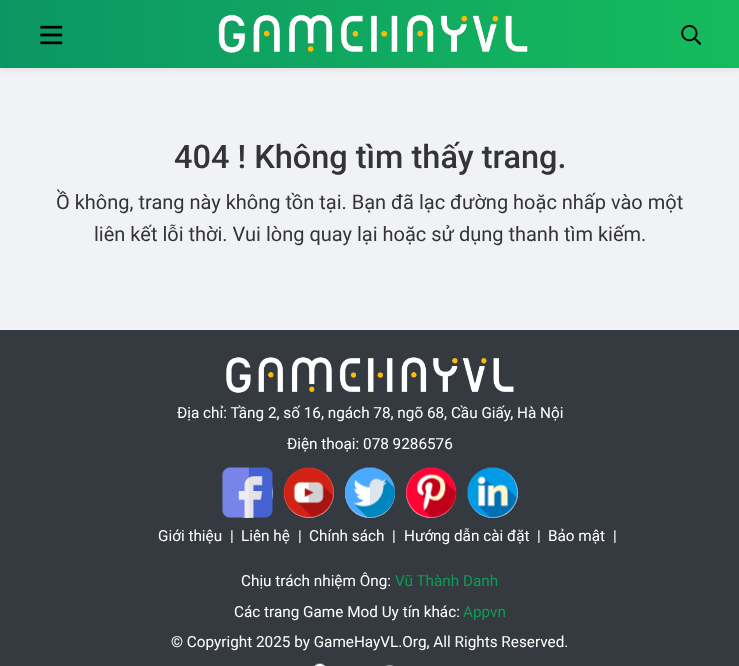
<!DOCTYPE html>
<meta charset="utf-8">
<style>body { margin: 0 } canvas { display: block }</style>
<canvas id="canvas" width="739" height="666"></canvas>
<img id="img1" src="img_01.png" hidden>
<img id="img2" src="img_02.png" hidden>
<img id="img3" src="img_03.png" hidden>
<img id="img4" src="img_04.png" hidden>
<img id="img5" src="img_05.png" hidden>
<img id="img6" src="img_06.png" hidden>
<img id="img7" src="img_07.png" hidden>
<img id="img8" src="img_08.png" hidden>
<img id="img9" src="img_09.png" hidden>
<img id="img10" src="img_10.png" hidden>
<script>
window.onload = function () {
	const canvas = document.getElementById("canvas");
	const ctx = canvas.getContext("2d");
	ctx.miterLimit = 4;
	ctx.fontKerning = "normal";
	function txt(s, x, y) {
		ctx.fillText(s, x, y);
	}
	function fill(x, y, w, h) {
		ctx.fillRect(x, y, w, h);
	}
	function img(id, x, y, w, h) {
		ctx.drawImage(document.getElementById(id), x, y, w, h);
	}
	let gradient;

	ctx.fillStyle = "#F0F2F5";
	fill(0, 0, 739, 666);
	ctx.fillStyle = "rgba(0, 0, 0, 0.07)";
	ctx.filter = "blur(2.5px)";
	ctx.beginPath();
	ctx.rect(0, 3, 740, 67);
	ctx.fill();
	ctx.filter = "none";
	gradient = ctx.createLinearGradient(0, 34, 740, 34);
	gradient.addColorStop(0, "#0C9664");
	gradient.addColorStop(1, "#15BB5D");
	ctx.fillStyle = gradient;
	fill(0, 0, 739, 68);
	img("img1", 40, 25, 23, 20);
	img("img2", 218, 14, 310, 39);
	img("img3", 681, 25, 20, 20);
	ctx.fillStyle = "#343A40";
	fill(0, 330, 739, 336);
	img("img4", 226, 357, 288, 36);
	ctx.fillStyle = "#F0F2F5";
	ctx.beginPath();
	ctx.arc(248, 493, 25, 0, Math.PI * 2);
	ctx.fill();
	img("img5", 222, 467, 51, 51);
	ctx.beginPath();
	ctx.arc(309, 493, 25, 0, Math.PI * 2);
	ctx.fill();
	img("img6", 283, 467, 51, 51);
	ctx.beginPath();
	ctx.arc(370, 493, 25, 0, Math.PI * 2);
	ctx.fill();
	img("img7", 345, 467, 50, 51);
	ctx.beginPath();
	ctx.arc(431, 493, 25, 0, Math.PI * 2);
	ctx.fill();
	img("img8", 406, 467, 51, 51);
	ctx.beginPath();
	ctx.arc(493, 493, 25, 0, Math.PI * 2);
	ctx.fill();
	img("img9", 467, 467, 51, 51);
	img("img10", 313, 663, 81, 3);
	ctx.font = "500 32.5px Roboto";
	ctx.fillStyle = "#343434";
	txt("404 ! Không tìm thấy trang.", 174, 168);
	ctx.font = "20px Roboto";
	txt("Ồ không, trang này không tồn tại. Bạn đã lạc đường hoặc nhấp vào một", 56, 209);
	txt("liên kết lỗi thời. Vui lòng quay lại hoặc sử dụng thanh tìm kiếm.", 94, 241);
	ctx.font = "15.3px Roboto";
	ctx.fillStyle = "#FFFFFF";
	txt("Địa chỉ: Tầng 2, số 16, ngách 78, ngõ 68, Cầu Giấy, Hà Nội", 177, 418);
	txt("Điện thoại: 078 9286576", 287, 449);
	txt("Giới thiệu", 158, 541);
	txt("|", 230, 541);
	txt("Liên hệ", 241, 541);
	txt("|", 298, 541);
	txt("Chính sách", 309, 541);
	txt("|", 392, 541);
	txt("Hướng dẫn cài đặt", 404, 541);
	txt("|", 537, 541);
	txt("Bảo mật", 548, 541);
	txt("|", 613, 541);
	txt("Chịu trách nhiệm Ông:", 241, 586);
	ctx.fillStyle = "#0B9D54";
	txt("Vũ Thành Danh", 395, 586);
	ctx.fillStyle = "#FFFFFF";
	txt("Các trang Game Mod Uy tín khác:", 234, 617);
	ctx.fillStyle = "#0B9D54";
	txt("Appvn", 463, 617);
	ctx.fillStyle = "#FFFFFF";
	txt("© Copyright 2025 by GameHayVL.Org, All Rights Reserved.", 171, 647);
};
</script>
